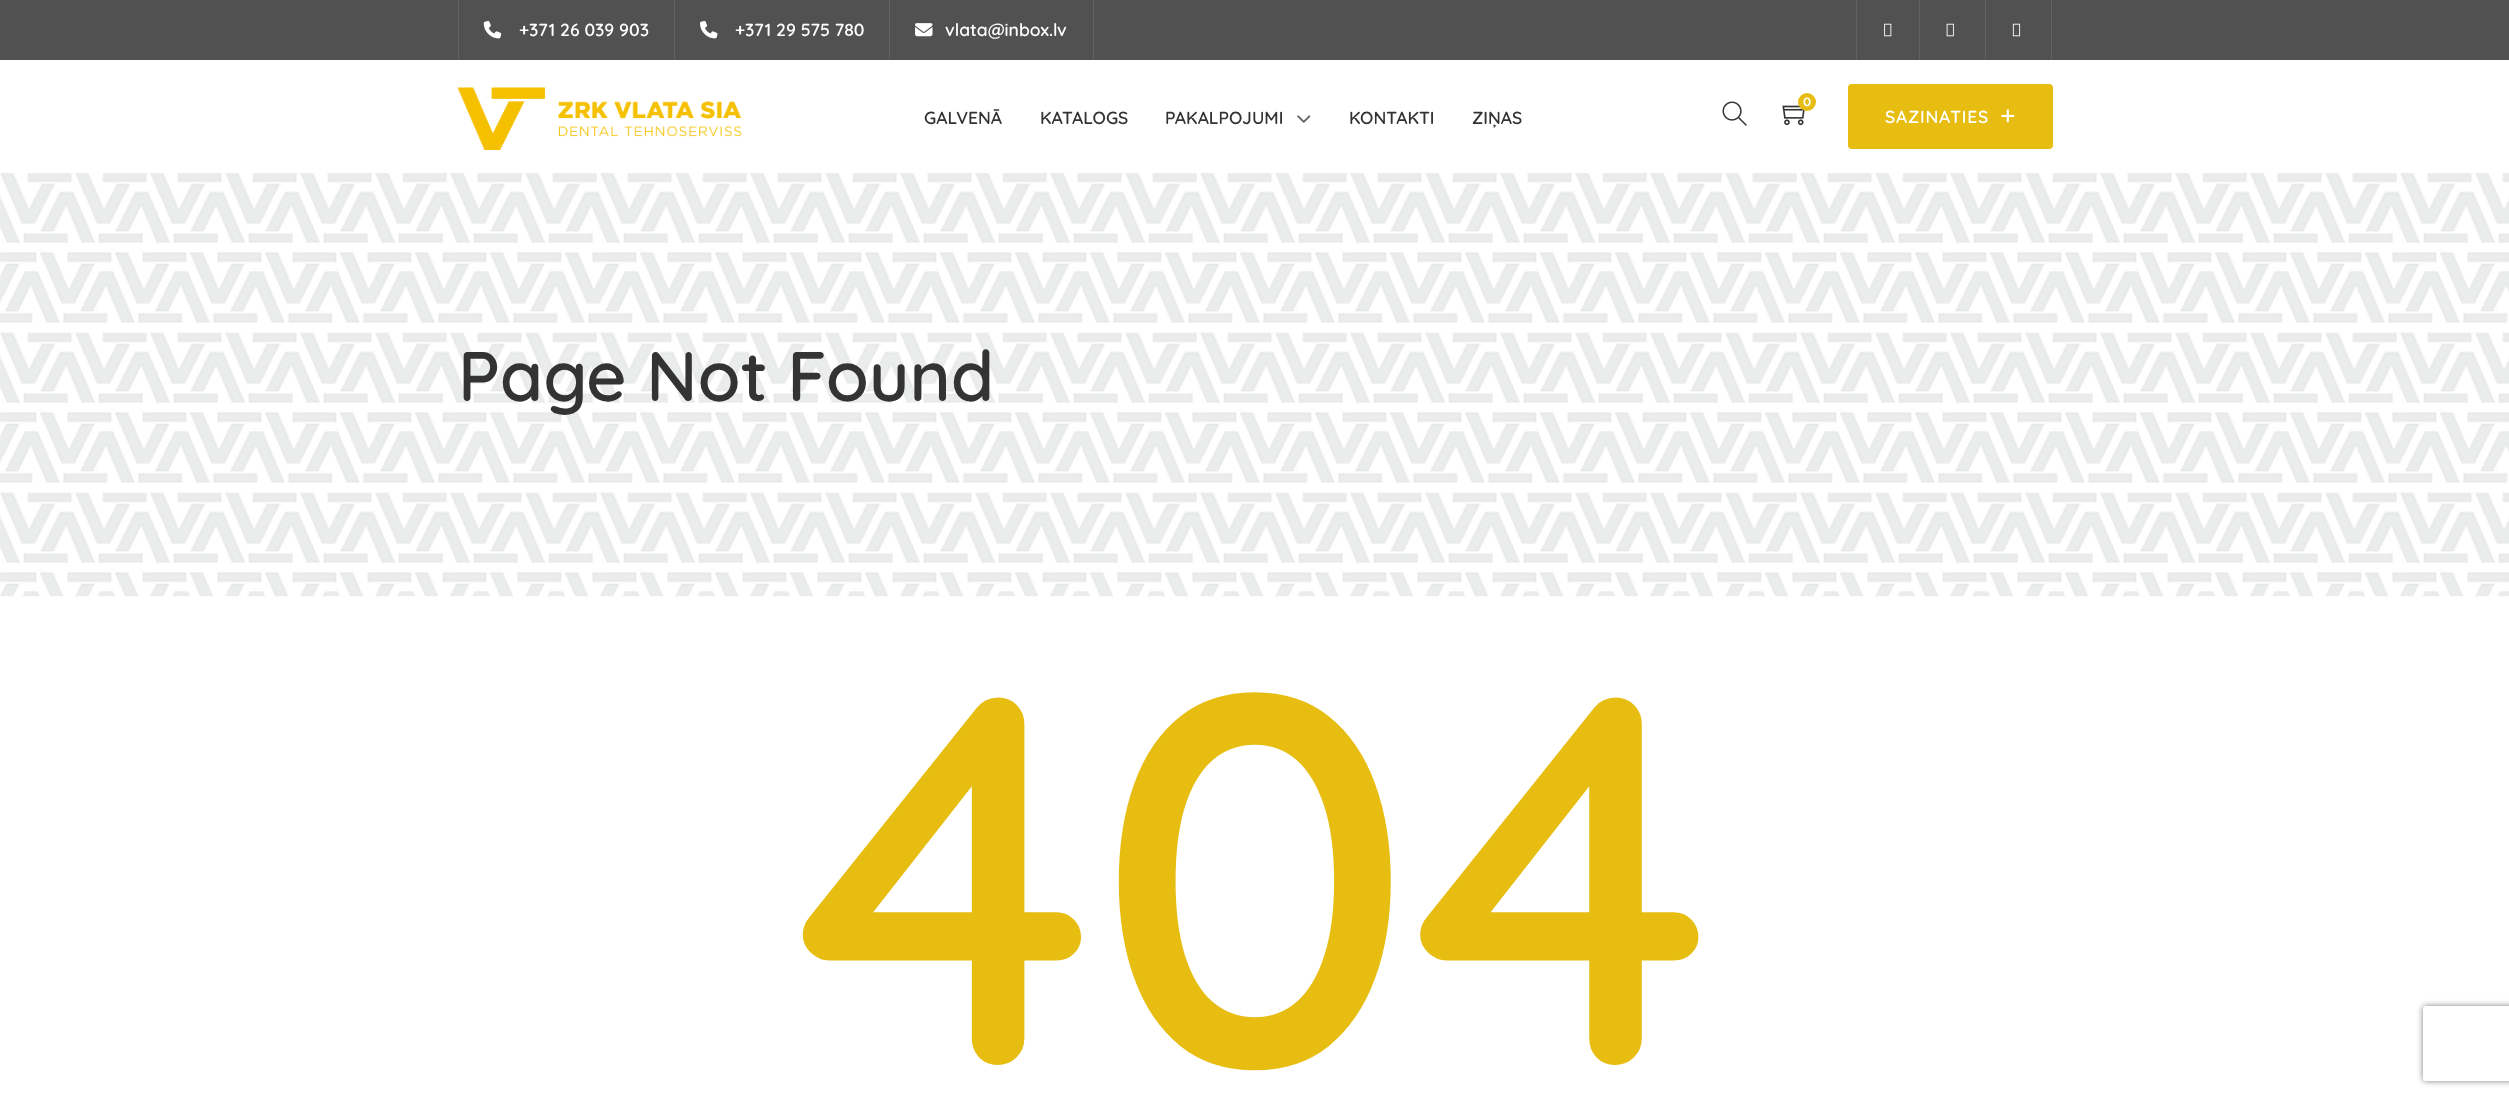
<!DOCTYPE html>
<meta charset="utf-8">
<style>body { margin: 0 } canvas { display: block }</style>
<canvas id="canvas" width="2509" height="1098"></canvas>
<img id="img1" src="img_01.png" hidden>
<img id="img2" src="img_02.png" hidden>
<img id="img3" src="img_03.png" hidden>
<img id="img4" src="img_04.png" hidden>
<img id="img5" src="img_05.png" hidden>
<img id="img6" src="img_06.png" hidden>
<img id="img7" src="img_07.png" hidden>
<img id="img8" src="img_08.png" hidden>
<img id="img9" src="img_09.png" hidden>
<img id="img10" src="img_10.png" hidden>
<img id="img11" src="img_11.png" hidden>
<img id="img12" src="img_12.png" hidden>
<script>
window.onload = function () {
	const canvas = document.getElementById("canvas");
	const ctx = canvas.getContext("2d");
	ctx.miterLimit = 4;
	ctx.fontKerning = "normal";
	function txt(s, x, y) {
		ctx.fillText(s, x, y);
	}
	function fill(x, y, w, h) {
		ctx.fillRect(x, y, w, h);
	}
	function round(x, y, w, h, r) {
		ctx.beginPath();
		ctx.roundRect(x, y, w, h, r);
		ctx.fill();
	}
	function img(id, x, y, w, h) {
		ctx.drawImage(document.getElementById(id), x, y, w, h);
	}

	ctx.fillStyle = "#FFFFFF";
	fill(0, 0, 2509, 1098);
	ctx.fillStyle = "#515151";
	fill(0, 0, 2509, 60);
	ctx.fillStyle = "#626262";
	fill(458, 0, 1, 60);
	img("img1", 483, 20, 19, 19);
	fill(674, 0, 1, 60);
	img("img2", 700, 20, 18, 19);
	fill(1093, 0, 1, 60);
	fill(889, 0, 1, 60);
	img("img3", 915, 23, 18, 14);
	fill(1856, 0, 1, 60);
	img("img4", 1884, 23, 8, 14);
	fill(1919, 0, 1, 60);
	img("img5", 1946, 23, 8, 14);
	fill(2051, 0, 1, 60);
	fill(1985, 0, 1, 60);
	img("img6", 2012, 23, 9, 14);
	img("img7", 457, 87, 285, 63);
	img("img8", 1297, 115, 14, 8);
	img("img9", 1722, 101, 25, 25);
	img("img10", 1782, 105, 23, 21);
	ctx.fillStyle = "#E6BD10";
	ctx.beginPath();
	ctx.arc(1807, 102, 9, 0, Math.PI * 2);
	ctx.fill();
	round(1848, 84, 205, 65, 4);
	img("img11", 2001, 109, 14, 14);
	img("img12", 0, 173, 2509, 424);
	ctx.save();
	ctx.beginPath();
	ctx.moveTo(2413, 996);
	ctx.lineTo(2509, 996);
	ctx.lineTo(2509, 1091);
	ctx.lineTo(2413, 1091);
	ctx.closePath();
	ctx.moveTo(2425.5, 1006);
	ctx.lineTo(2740.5, 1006);
	ctx.bezierCurveTo(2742, 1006, 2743, 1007, 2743, 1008.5);
	ctx.lineTo(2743, 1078.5);
	ctx.bezierCurveTo(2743, 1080, 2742, 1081, 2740.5, 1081);
	ctx.lineTo(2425.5, 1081);
	ctx.bezierCurveTo(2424, 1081, 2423, 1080, 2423, 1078.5);
	ctx.lineTo(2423, 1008.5);
	ctx.bezierCurveTo(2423, 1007, 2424, 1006, 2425.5, 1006);
	ctx.closePath();
	ctx.clip("evenodd");
	ctx.fillStyle = "#808080";
	ctx.filter = "blur(3px)";
	ctx.beginPath();
	ctx.roundRect(2423, 1006, 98, 75, 2.5);
	ctx.fill();
	ctx.filter = "none";
	ctx.restore();
	ctx.font = "600 17.5px Quicksand";
	ctx.fillStyle = "#FFFFFF";
	txt("+371 26 039 903", 519, 36);
	txt("+371 29 575 780", 735, 36);
	txt("vlata@inbox.lv", 945, 36);
	ctx.fillStyle = "#333333";
	txt("GALVENĀ", 924, 124);
	txt("KATALOGS", 1040, 124);
	txt("PAKALPOJUMI", 1165, 124);
	txt("KONTAKTI", 1349, 124);
	txt("ZIŅAS", 1472, 124);
	ctx.font = "600 12px Montserrat";
	ctx.fillStyle = "#FFFFFF";
	txt("0", 1803, 106);
	ctx.letterSpacing = "0.75px";
	ctx.font = "600 17.5px Quicksand";
	txt("SAZINATIES", 1885, 123);
	ctx.letterSpacing = "0px";
	ctx.font = "600 70px Quicksand";
	ctx.fillStyle = "#333333";
	txt("Page Not Found", 458, 401);
	ctx.font = "600 525px Quicksand";
	ctx.fillStyle = "#E6BD10";
	txt("404", 797, 1065);
};
</script>
